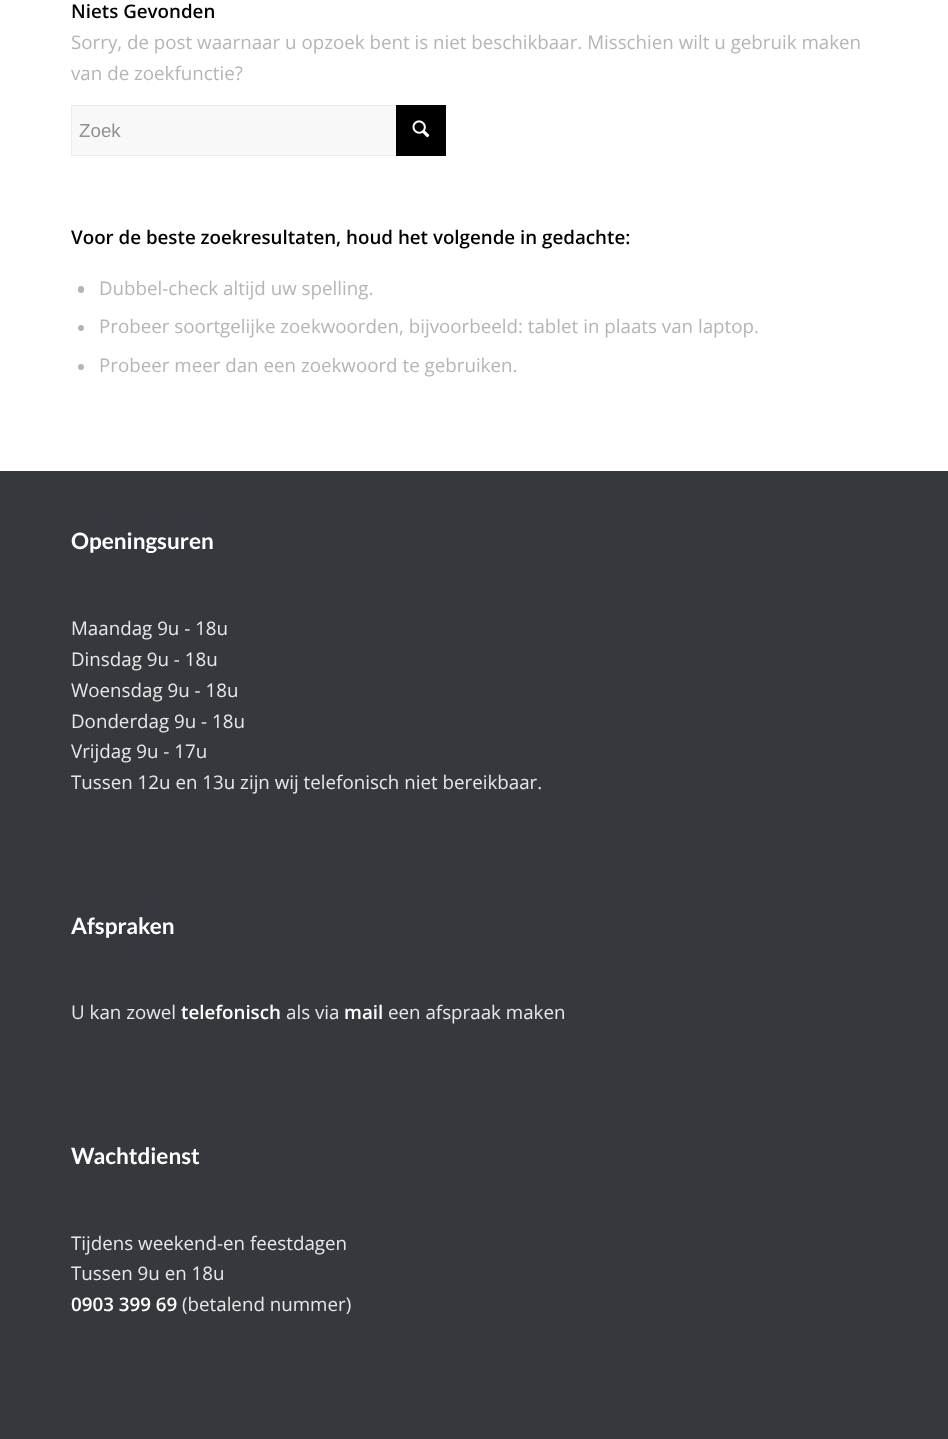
<!DOCTYPE html>
<meta charset="utf-8">
<style>body { margin: 0 } canvas { display: block }</style>
<canvas id="canvas" width="948" height="1439"></canvas>
<img id="img1" src="img_01.png" hidden>
<script>
window.onload = function () {
	const canvas = document.getElementById("canvas");
	const ctx = canvas.getContext("2d");
	ctx.miterLimit = 4;
	ctx.fontKerning = "normal";
	function txt(s, x, y) {
		ctx.fillText(s, x, y);
	}
	function fill(x, y, w, h) {
		ctx.fillRect(x, y, w, h);
	}
	function round(x, y, w, h, r) {
		ctx.beginPath();
		ctx.roundRect(x, y, w, h, r);
		ctx.fill();
	}
	function img(id, x, y, w, h) {
		ctx.drawImage(document.getElementById(id), x, y, w, h);
	}

	ctx.fillStyle = "#FFFFFF";
	fill(0, 0, 948, 1439);
	ctx.fillStyle = "#F8F8F8";
	fill(72, 106, 324, 49);
	ctx.strokeStyle = "#EBEBEB";
	ctx.strokeRect(71.5, 105.5, 374, 50);
	ctx.fillStyle = "#000000";
	fill(396, 105, 50, 51);
	img("img1", 412, 120, 18, 18);
	ctx.fillStyle = "#B5B5B5";
	round(78, 286, 6, 7, 3);
	ctx.beginPath();
	ctx.arc(81, 328, 3, 0, Math.PI * 2);
	ctx.fill();
	ctx.beginPath();
	ctx.arc(81, 367, 3, 0, Math.PI * 2);
	ctx.fill();
	ctx.fillStyle = "#35383C";
	fill(0, 471, 948, 968);
	ctx.font = "600 18.75px Open Sans";
	ctx.fillStyle = "#000000";
	txt("Niets Gevonden", 71, 18);
	ctx.font = "18.75px Open Sans";
	ctx.fillStyle = "#B5B5B5";
	txt("Sorry, de post waarnaar u opzoek bent is niet beschikbaar. Misschien wilt u gebruik maken", 71, 49);
	txt("van de zoekfunctie?", 71, 80);
	ctx.font = "18.75px Liberation Sans";
	ctx.fillStyle = "#919191";
	txt("Zoek", 79, 137);
	ctx.font = "600 18.75px Open Sans";
	ctx.fillStyle = "#000000";
	txt("Voor de beste zoekresultaten, houd het volgende in gedachte:", 71, 244);
	ctx.font = "18.75px Open Sans";
	ctx.fillStyle = "#B5B5B5";
	txt("Dubbel-check altijd uw spelling.", 99, 295);
	txt("Probeer soortgelijke zoekwoorden, bijvoorbeeld: tablet in plaats van laptop.", 99, 333);
	txt("Probeer meer dan een zoekwoord te gebruiken.", 99, 372);
	ctx.font = "bold 22.5px Lato";
	ctx.fillStyle = "#FFFFFF";
	txt("Openingsuren", 71, 549);
	ctx.font = "18.75px Open Sans";
	ctx.fillStyle = "#E8E8E8";
	txt("Maandag 9u - 18u", 71, 635);
	txt("Dinsdag 9u - 18u", 71, 666);
	txt("Woensdag 9u - 18u", 71, 697);
	txt("Donderdag 9u - 18u", 71, 728);
	txt("Vrijdag 9u - 17u", 71, 758);
	txt("Tussen 12u en 13u zijn wij telefonisch niet bereikbaar.", 71, 789);
	ctx.font = "bold 22.5px Lato";
	ctx.fillStyle = "#FFFFFF";
	txt("Afspraken", 71, 934);
	ctx.font = "18.75px Open Sans";
	ctx.fillStyle = "#E8E8E8";
	txt("U kan zowel", 71, 1019);
	ctx.font = "600 18.75px Open Sans";
	ctx.fillStyle = "#FFFFFF";
	txt("telefonisch", 181, 1019);
	ctx.font = "18.75px Open Sans";
	ctx.fillStyle = "#E8E8E8";
	txt("als via", 286, 1019);
	ctx.font = "600 18.75px Open Sans";
	ctx.fillStyle = "#FFFFFF";
	txt("mail", 344, 1019);
	ctx.font = "18.75px Open Sans";
	ctx.fillStyle = "#E8E8E8";
	txt("een afspraak maken", 388, 1019);
	ctx.font = "bold 22.5px Lato";
	ctx.fillStyle = "#FFFFFF";
	txt("Wachtdienst", 71, 1164);
	ctx.font = "18.75px Open Sans";
	ctx.fillStyle = "#E8E8E8";
	txt("Tijdens weekend-en feestdagen", 71, 1250);
	txt("Tussen 9u en 18u", 71, 1280);
	ctx.font = "600 18.75px Open Sans";
	ctx.fillStyle = "#FFFFFF";
	txt("0903 399 69", 71, 1311);
	ctx.font = "18.75px Open Sans";
	ctx.fillStyle = "#E8E8E8";
	txt("(betalend nummer)", 182, 1311);
};
</script>
